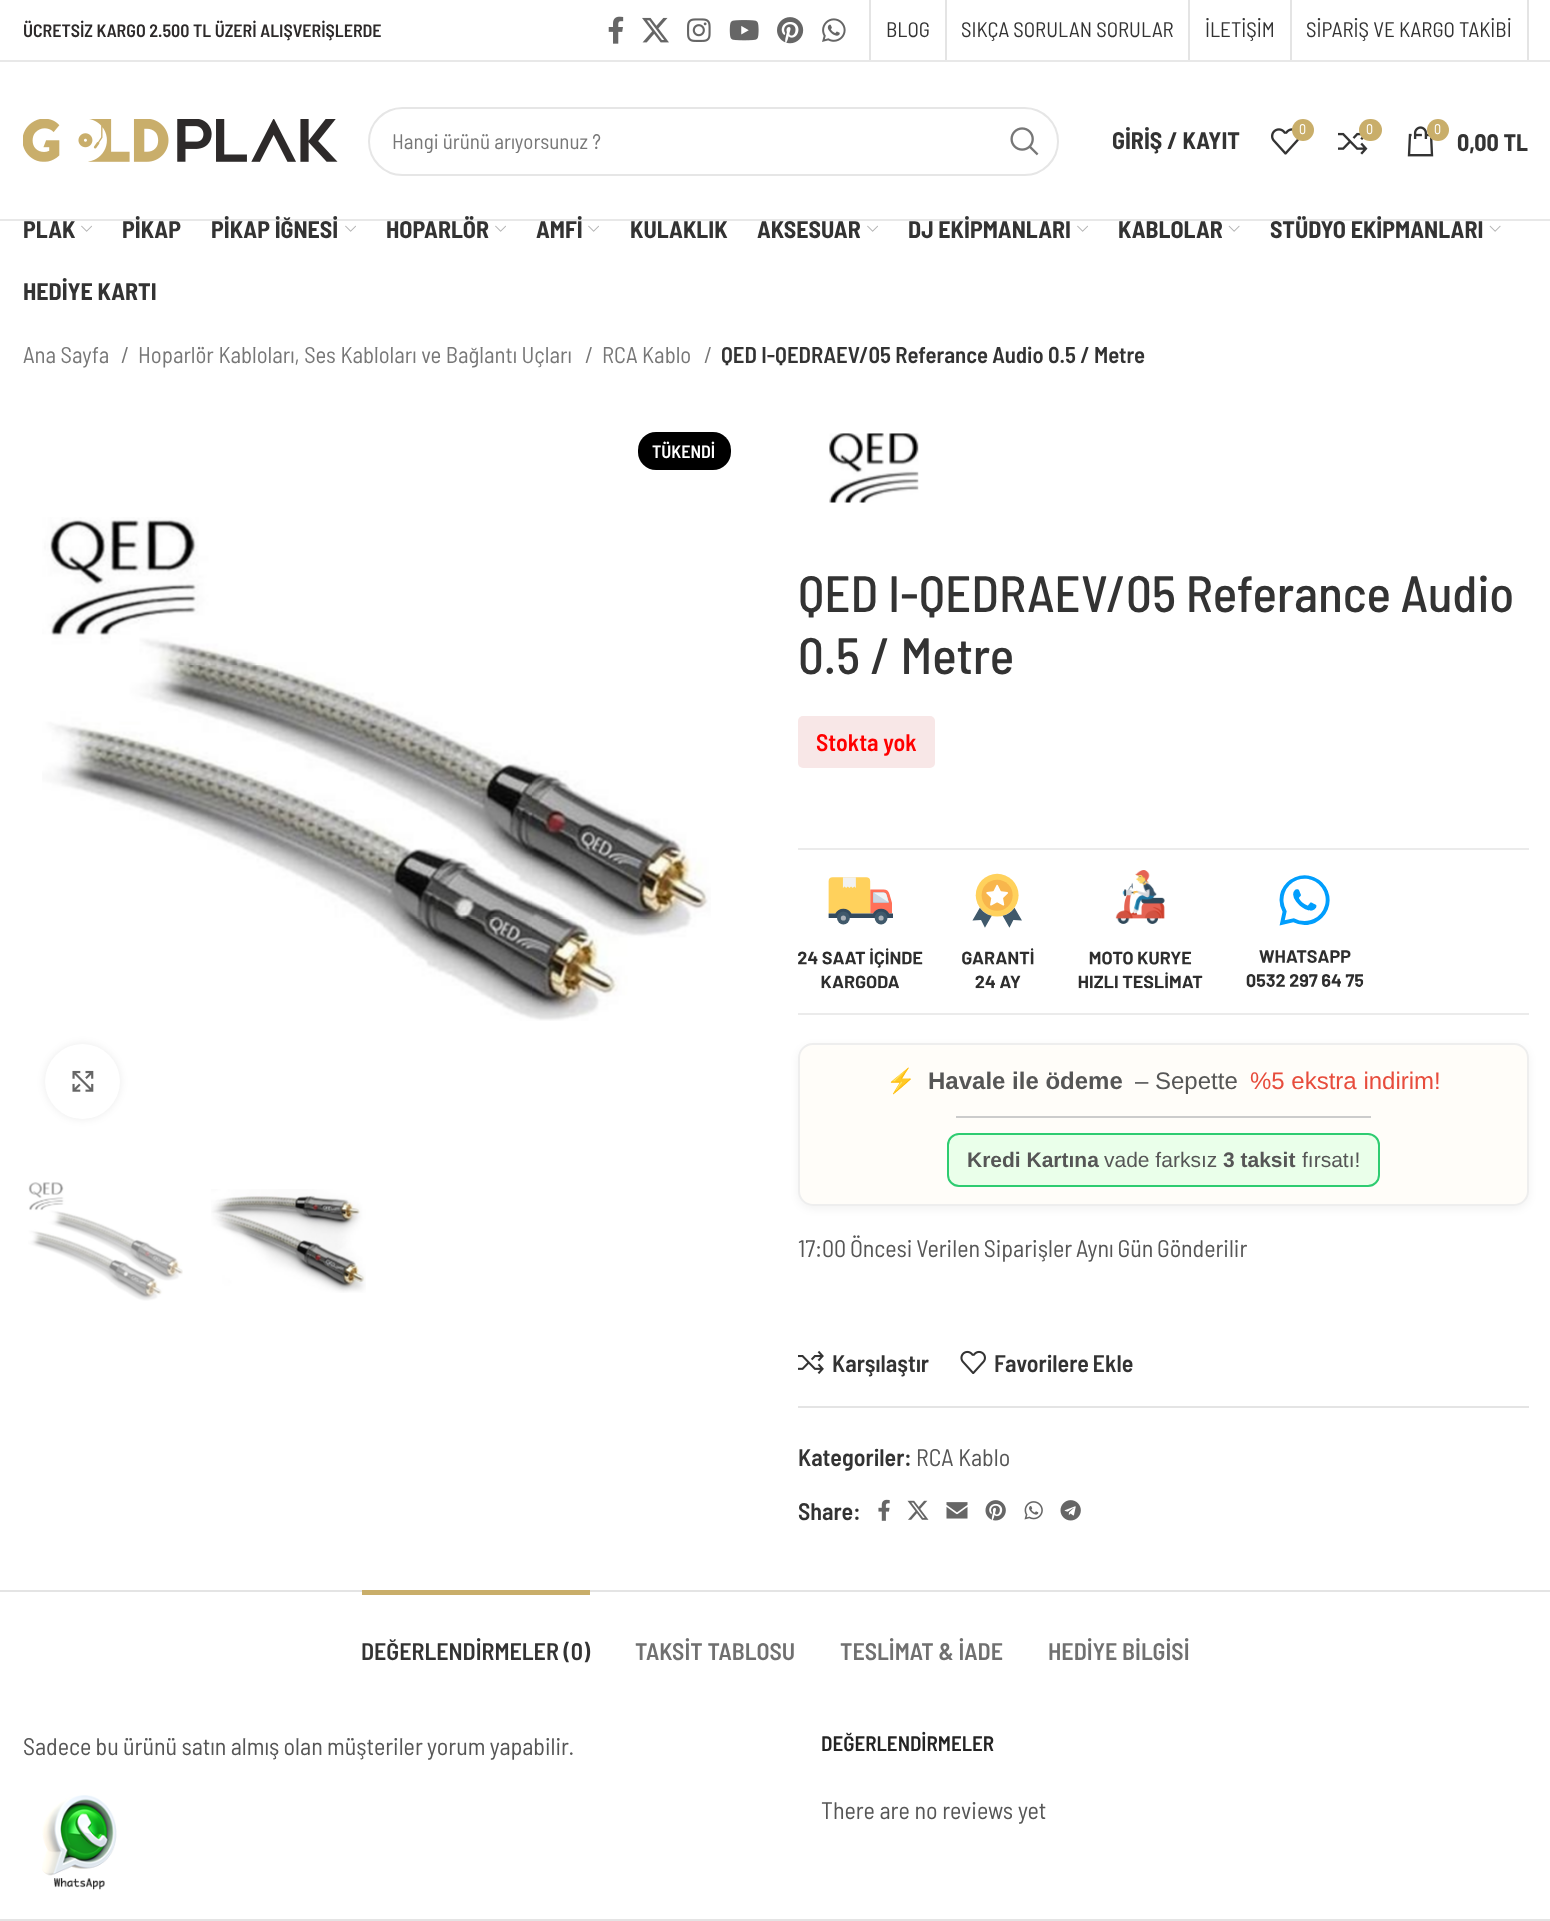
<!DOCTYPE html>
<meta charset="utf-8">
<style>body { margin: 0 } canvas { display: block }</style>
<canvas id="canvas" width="1550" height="1921"></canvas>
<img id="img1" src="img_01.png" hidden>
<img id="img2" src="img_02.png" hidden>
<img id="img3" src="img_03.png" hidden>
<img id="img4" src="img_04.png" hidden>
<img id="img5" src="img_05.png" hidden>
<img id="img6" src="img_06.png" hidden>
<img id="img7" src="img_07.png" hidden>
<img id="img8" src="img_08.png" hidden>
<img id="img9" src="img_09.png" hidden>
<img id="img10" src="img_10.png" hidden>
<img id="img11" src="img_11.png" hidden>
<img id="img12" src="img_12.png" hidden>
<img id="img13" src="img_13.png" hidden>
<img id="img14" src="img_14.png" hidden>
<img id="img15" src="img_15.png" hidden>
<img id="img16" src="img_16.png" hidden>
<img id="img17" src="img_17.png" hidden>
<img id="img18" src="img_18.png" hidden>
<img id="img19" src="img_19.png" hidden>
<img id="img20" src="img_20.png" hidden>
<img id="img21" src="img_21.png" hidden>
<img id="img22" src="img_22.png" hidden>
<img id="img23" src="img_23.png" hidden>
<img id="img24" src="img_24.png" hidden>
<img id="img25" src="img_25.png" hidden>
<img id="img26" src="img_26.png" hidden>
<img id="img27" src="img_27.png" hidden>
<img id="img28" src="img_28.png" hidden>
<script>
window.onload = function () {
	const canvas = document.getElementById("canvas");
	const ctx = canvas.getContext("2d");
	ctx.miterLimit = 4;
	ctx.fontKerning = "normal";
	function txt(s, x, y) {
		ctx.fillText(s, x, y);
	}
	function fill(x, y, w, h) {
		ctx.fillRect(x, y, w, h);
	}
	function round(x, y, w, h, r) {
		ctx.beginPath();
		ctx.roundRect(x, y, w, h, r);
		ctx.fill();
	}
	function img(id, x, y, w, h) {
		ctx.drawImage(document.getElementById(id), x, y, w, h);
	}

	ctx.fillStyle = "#FFFFFF";
	fill(0, 0, 1550, 1921);
	ctx.fillStyle = "#E8E8E8";
	fill(0, 60, 1550, 2);
	img("img1", 608, 16, 16, 28);
	img("img2", 642, 17, 27, 26);
	img("img3", 687, 18, 24, 24);
	img("img4", 729, 20, 30, 21);
	img("img5", 777, 17, 27, 27);
	img("img6", 822, 18, 24, 24);
	ctx.fillStyle = "#E4E4E4";
	fill(869, 0, 2, 60);
	fill(945, 0, 2, 60);
	fill(1188, 0, 2, 60);
	fill(1290, 0, 2, 60);
	fill(1527, 0, 2, 60);
	ctx.fillStyle = "#E8E8E8";
	fill(0, 219, 1550, 2);
	img("img7", 23, 119, 315, 43);
	ctx.beginPath();
	ctx.roundRect(369, 108, 689, 67, 33.5);
	ctx.strokeStyle = "#E6E6E6";
	ctx.lineWidth = 2;
	ctx.stroke();
	img("img8", 1010, 127, 29, 29);
	img("img9", 1271, 128, 28, 27);
	ctx.fillStyle = "#C9AE6A";
	ctx.beginPath();
	ctx.arc(1303, 130, 11, 0, Math.PI * 2);
	ctx.fill();
	img("img10", 1338, 132, 30, 23);
	round(1359, 119, 23, 22, 11);
	img("img11", 1407, 126, 27, 31);
	ctx.beginPath();
	ctx.arc(1438, 130, 11, 0, Math.PI * 2);
	ctx.fill();
	img("img12", 81, 225, 11, 7);
	img("img12", 345, 225, 11, 7);
	img("img12", 495, 225, 11, 7);
	img("img12", 588, 225, 11, 7);
	img("img12", 867, 225, 11, 7);
	img("img12", 1077, 225, 11, 7);
	img("img13", 1228, 225, 12, 7);
	img("img13", 1489, 225, 12, 7);
	ctx.fillStyle = "#000000";
	round(638, 432, 93, 38, 18);
	img("img14", 42, 517, 669, 504);
	ctx.fillStyle = "rgba(0, 0, 0, 0.08)";
	ctx.filter = "blur(4px)";
	ctx.beginPath();
	ctx.roundRect(45, 1044, 75, 75, 37.5);
	ctx.fill();
	ctx.filter = "none";
	ctx.fillStyle = "#FFFFFF";
	ctx.beginPath();
	ctx.arc(82.5, 1081.5, 37.5, 0, Math.PI * 2);
	ctx.fill();
	img("img15", 72, 1070, 22, 22);
	img("img16", 28, 1182, 155, 119);
	img("img17", 211, 1189, 155, 104);
	img("img18", 829, 433, 90, 70);
	ctx.fillStyle = "#F8E7E7";
	round(798, 716, 137, 52, 5);
	ctx.fillStyle = "#EBEBEB";
	fill(798, 848, 731, 2);
	img("img19", 798, 870, 566, 119);
	fill(798, 1013, 731, 2);
	ctx.fillStyle = "rgba(0, 0, 0, 0.05)";
	ctx.filter = "blur(4.5px)";
	ctx.beginPath();
	ctx.roundRect(798, 1046, 731, 163, 15);
	ctx.fill();
	ctx.filter = "none";
	ctx.fillStyle = "#FFFDF9";
	ctx.beginPath();
	ctx.roundRect(799, 1044, 729, 161, 14);
	ctx.fill();
	ctx.strokeStyle = "#EEEEEE";
	ctx.stroke();
	ctx.fillStyle = "#CCCCCC";
	fill(956, 1116, 415, 2);
	ctx.fillStyle = "#EAFFEA";
	ctx.beginPath();
	ctx.roundRect(948, 1134, 431, 52, 11);
	ctx.fill();
	ctx.strokeStyle = "#2ECC71";
	ctx.stroke();
	img("img20", 798, 1350, 26, 24);
	img("img21", 960, 1350, 26, 24);
	ctx.fillStyle = "#E4E4E4";
	fill(798, 1406, 731, 2);
	img("img22", 878, 1499, 12, 22);
	img("img23", 907, 1500, 22, 20);
	img("img24", 946, 1502, 22, 17);
	img("img25", 985, 1500, 21, 21);
	img("img26", 1024, 1501, 19, 19);
	img("img27", 1060, 1500, 21, 21);
	fill(0, 1590, 1550, 2);
	fill(0, 1919, 1550, 2);
	ctx.fillStyle = "#C9AE6A";
	fill(362, 1590, 228, 5);
	img("img28", 42, 1795, 75, 95);
	ctx.font = "600 18px Barlow Semi Condensed";
	ctx.fillStyle = "#2D2A2A";
	txt("ÜCRETSİZ KARGO 2.500 TL ÜZERİ ALIŞVERİŞLERDE", 23, 37);
	ctx.font = "21px Barlow Semi Condensed";
	ctx.fillStyle = "#333333";
	txt("BLOG", 886, 37);
	txt("SIKÇA SORULAN SORULAR", 961, 37);
	txt("İLETİŞİM", 1205, 37);
	txt("SİPARİŞ VE KARGO TAKİBİ", 1306, 37);
	ctx.save();
	ctx.beginPath();
	ctx.rect(392, 128, 597, 25);
	ctx.clip();
	ctx.fillStyle = "#777777";
	txt("Hangi ürünü arıyorsunuz ?", 392, 149);
	ctx.restore();
	ctx.font = "bold 24px Barlow Semi Condensed";
	txt("GİRİŞ / KAYIT", 1112, 149);
	ctx.font = "14px Barlow Semi Condensed";
	ctx.fillStyle = "#FFFFFF";
	txt("0", 1299, 134);
	txt("0", 1366, 134);
	txt("0", 1434, 134);
	ctx.font = "bold 24px Barlow Semi Condensed";
	ctx.fillStyle = "#333333";
	txt("0,00 TL", 1457, 151);
	txt("PLAK", 23, 238);
	txt("PİKAP", 122, 238);
	txt("PİKAP İĞNESİ", 211, 238);
	txt("HOPARLÖR", 386, 238);
	txt("AMFİ", 536, 238);
	txt("KULAKLIK", 630, 238);
	txt("AKSESUAR", 757, 238);
	txt("DJ EKİPMANLARI", 908, 238);
	txt("KABLOLAR", 1118, 238);
	txt("STÜDYO EKİPMANLARI", 1270, 238);
	txt("HEDİYE KARTI", 23, 300);
	ctx.font = "22.75px Barlow Semi Condensed";
	ctx.fillStyle = "#777777";
	txt("Ana Sayfa", 23, 363);
	txt("/", 121, 363);
	txt("Hoparlör Kabloları, Ses Kabloları ve Bağlantı Uçları", 138, 363);
	txt("/", 585, 363);
	txt("RCA Kablo", 602, 363);
	txt("/", 704, 363);
	ctx.wordSpacing = "-0.25px";
	ctx.font = "600 22.75px Barlow Semi Condensed";
	ctx.fillStyle = "#333333";
	txt("QED I-QEDRAEV/05 Referance Audio 0.5 / Metre", 721, 363);
	ctx.wordSpacing = "0px";
	ctx.font = "600 18px Barlow Semi Condensed";
	ctx.fillStyle = "#FFFFFF";
	txt("TÜKENDİ", 652, 458);
	ctx.wordSpacing = "-0.5px";
	ctx.font = "500 51px Barlow Semi Condensed";
	ctx.fillStyle = "#333333";
	txt("QED I-QEDRAEV/05 Referance Audio", 798, 612);
	ctx.wordSpacing = "0px";
	txt("0.5 / Metre", 798, 674);
	ctx.font = "600 24px Barlow Semi Condensed";
	ctx.fillStyle = "#FF0000";
	txt("Stokta yok", 816, 751);
	ctx.font = "24px Noto Color Emoji";
	ctx.fillStyle = "#565656";
	txt("⚡️", 886, 1089);
	ctx.font = "bold 24px Liberation Sans";
	txt("Havale ile ödeme", 928, 1089);
	ctx.font = "24px Liberation Sans";
	txt("– Sepette", 1135, 1089);
	ctx.fillStyle = "#E74C3C";
	txt("%5 ekstra indirim!", 1250, 1089);
	ctx.font = "bold 21px Liberation Sans";
	ctx.fillStyle = "#565656";
	txt("Kredi Kartına", 967, 1167);
	ctx.font = "21px Liberation Sans";
	txt("vade farksız", 1104, 1167);
	ctx.font = "bold 21px Liberation Sans";
	txt("3 taksit", 1223, 1167);
	ctx.font = "21px Liberation Sans";
	txt("fırsatı!", 1302, 1167);
	ctx.wordSpacing = "-1px";
	ctx.font = "24px Barlow Semi Condensed";
	txt("17:00 Öncesi Verilen Siparişler Aynı Gün Gönderilir", 798, 1257);
	ctx.wordSpacing = "0px";
	ctx.font = "600 24px Barlow Semi Condensed";
	ctx.fillStyle = "#333333";
	txt("Karşılaştır", 832, 1372);
	ctx.wordSpacing = "-1px";
	txt("Favorilere Ekle", 994, 1372);
	ctx.wordSpacing = "0px";
	txt("Kategoriler:", 798, 1466);
	ctx.font = "24px Barlow Semi Condensed";
	ctx.fillStyle = "#565656";
	txt("RCA Kablo", 916, 1466);
	ctx.font = "600 24px Barlow Semi Condensed";
	ctx.fillStyle = "#333333";
	txt("Share:", 798, 1520);
	txt("DEĞERLENDİRMELER (0)", 361, 1660);
	ctx.fillStyle = "#707070";
	txt("TAKSİT TABLOSU", 635, 1660);
	txt("TESLİMAT & İADE", 840, 1660);
	txt("HEDİYE BİLGİSİ", 1048, 1660);
	ctx.wordSpacing = "-0.5px";
	ctx.font = "24px Barlow Semi Condensed";
	ctx.fillStyle = "#565656";
	txt("Sadece bu ürünü satın almış olan müşteriler yorum yapabilir.", 23, 1755);
	ctx.wordSpacing = "0px";
	ctx.font = "600 21px Barlow Semi Condensed";
	ctx.fillStyle = "#242424";
	txt("DEĞERLENDİRMELER", 821, 1751);
	ctx.font = "24px Barlow Semi Condensed";
	ctx.fillStyle = "#565656";
	txt("There are no reviews yet", 821, 1819);
};
</script>
